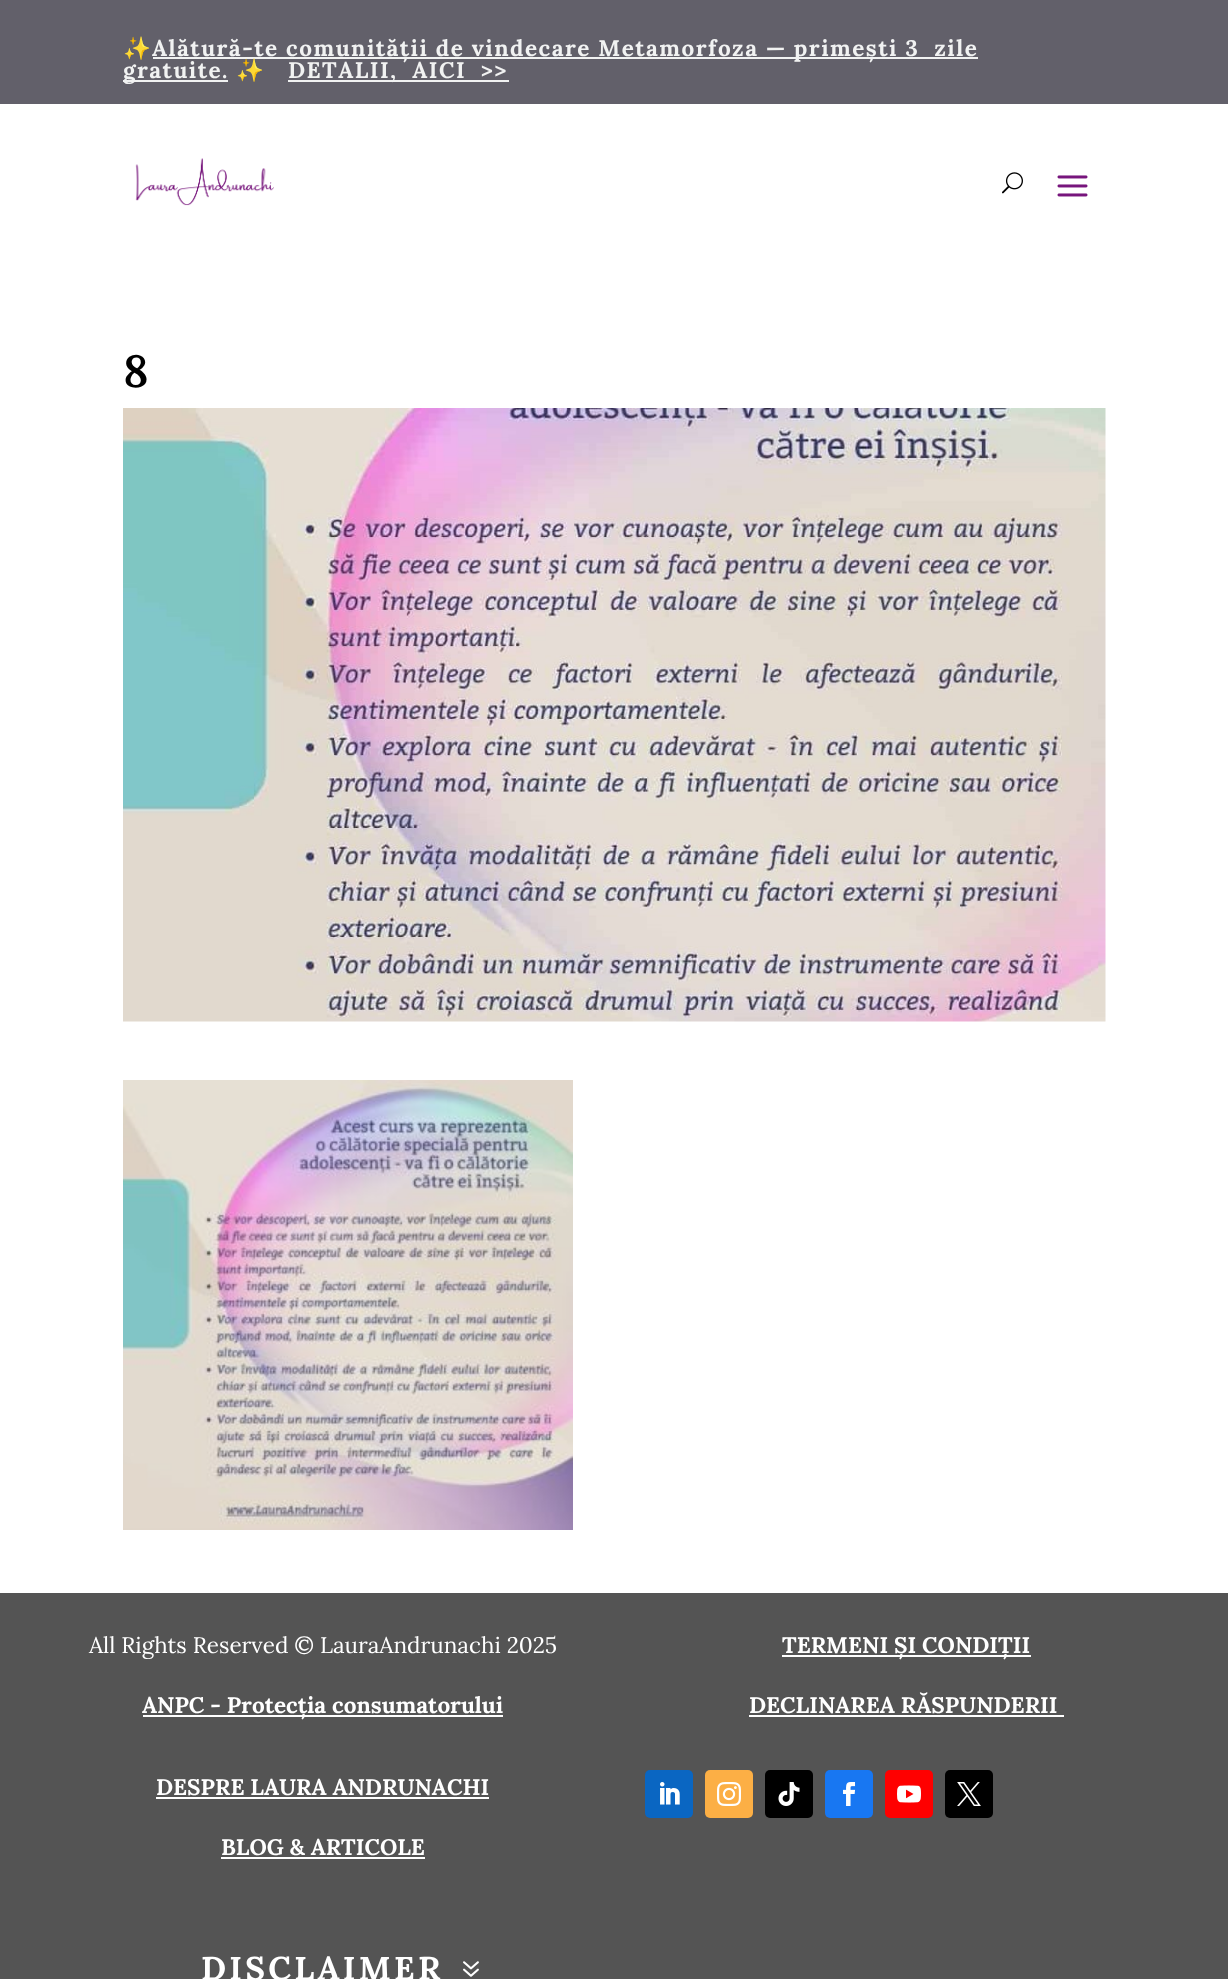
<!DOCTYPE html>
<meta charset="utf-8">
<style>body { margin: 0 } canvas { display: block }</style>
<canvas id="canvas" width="1228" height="1979"></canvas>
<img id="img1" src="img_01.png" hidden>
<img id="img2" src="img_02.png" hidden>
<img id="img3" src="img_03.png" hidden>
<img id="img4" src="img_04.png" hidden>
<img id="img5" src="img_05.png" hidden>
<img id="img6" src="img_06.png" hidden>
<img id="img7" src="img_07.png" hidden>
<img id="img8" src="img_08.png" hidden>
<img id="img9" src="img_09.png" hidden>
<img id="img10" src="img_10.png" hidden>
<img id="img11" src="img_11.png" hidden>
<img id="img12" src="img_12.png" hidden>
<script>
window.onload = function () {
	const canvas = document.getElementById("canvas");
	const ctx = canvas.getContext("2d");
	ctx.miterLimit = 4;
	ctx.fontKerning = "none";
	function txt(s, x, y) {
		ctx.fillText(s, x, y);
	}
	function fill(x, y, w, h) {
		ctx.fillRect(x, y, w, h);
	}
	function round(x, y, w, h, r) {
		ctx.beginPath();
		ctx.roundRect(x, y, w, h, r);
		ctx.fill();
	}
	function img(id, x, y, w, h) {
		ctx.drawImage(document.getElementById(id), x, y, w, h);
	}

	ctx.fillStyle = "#FFFFFF";
	fill(0, 0, 1228, 1979);
	ctx.fillStyle = "#62606A";
	fill(0, 0, 1228, 104);
	ctx.fillStyle = "#F1F2F2";
	fill(153, 57, 825, 2);
	fill(123, 80, 105, 2);
	fill(288, 80, 221, 2);
	img("img1", 135, 158, 139, 48);
	img("img2", 1002, 172, 21, 22);
	img("img3", 1057, 175, 31, 22);
	img("img4", 123, 408, 983, 614);
	img("img5", 123, 1080, 450, 450);
	ctx.fillStyle = "#545454";
	fill(0, 1593, 1228, 386);
	ctx.fillStyle = "#FFFFFF";
	fill(143, 1715, 360, 2);
	fill(782, 1655, 249, 2);
	fill(749, 1715, 315, 2);
	fill(156, 1797, 333, 2);
	fill(221, 1857, 204, 2);
	img("img6", 463, 1961, 16, 16);
	ctx.fillStyle = "#0A66C2";
	round(645, 1770, 48, 48, 5);
	img("img7", 660, 1782, 20, 23);
	ctx.fillStyle = "#FCAF45";
	round(705, 1770, 48, 48, 5);
	img("img8", 717, 1782, 24, 24);
	ctx.fillStyle = "#000000";
	round(765, 1770, 48, 48, 5);
	img("img9", 778, 1782, 22, 24);
	ctx.fillStyle = "#1877F2";
	round(825, 1770, 48, 48, 5);
	img("img10", 843, 1782, 13, 24);
	ctx.fillStyle = "#FF0000";
	round(885, 1770, 48, 48, 5);
	img("img11", 897, 1785, 24, 18);
	ctx.fillStyle = "#000000";
	round(945, 1770, 48, 48, 5);
	img("img12", 957, 1782, 24, 24);
	ctx.letterSpacing = "1.5px";
	ctx.font = "22.5px Noto Color Emoji";
	ctx.fillStyle = "#FFFFFF";
	txt("✨", 123, 56);
	ctx.font = "bold 22.5px Lora";
	ctx.fillStyle = "#F1F2F2";
	txt("Alătură-te comunității de vindecare Metamorfoza — primești 3  zile", 152, 56);
	txt("gratuite.", 123, 78);
	ctx.font = "22.5px Noto Color Emoji";
	ctx.fillStyle = "#FFFF00";
	txt("✨", 236, 78);
	ctx.font = "bold 22.5px Lora";
	ctx.fillStyle = "#F1F2F2";
	txt("DETALII,  AICI  >>", 288, 78);
	ctx.letterSpacing = "0px";
	ctx.font = "600 45px Lora";
	ctx.fillStyle = "#000000";
	txt("8", 123, 387);
	ctx.font = "22.5px Lora";
	ctx.fillStyle = "#FFFFFF";
	txt("All Rights Reserved © LauraAndrunachi 2025", 89, 1653);
	ctx.font = "bold 22.5px Lora";
	txt("ANPC - Protecția consumatorului", 142, 1713);
	txt("TERMENI ȘI CONDIȚII", 782, 1653);
	txt("DECLINAREA RĂSPUNDERII", 749, 1713);
	txt("DESPRE LAURA ANDRUNACHI", 156, 1795);
	txt("BLOG & ARTICOLE", 221, 1855);
	ctx.letterSpacing = "3.25px";
	ctx.font = "bold 33px Lora";
	txt("DISCLAIMER", 201, 1980);
};
</script>
